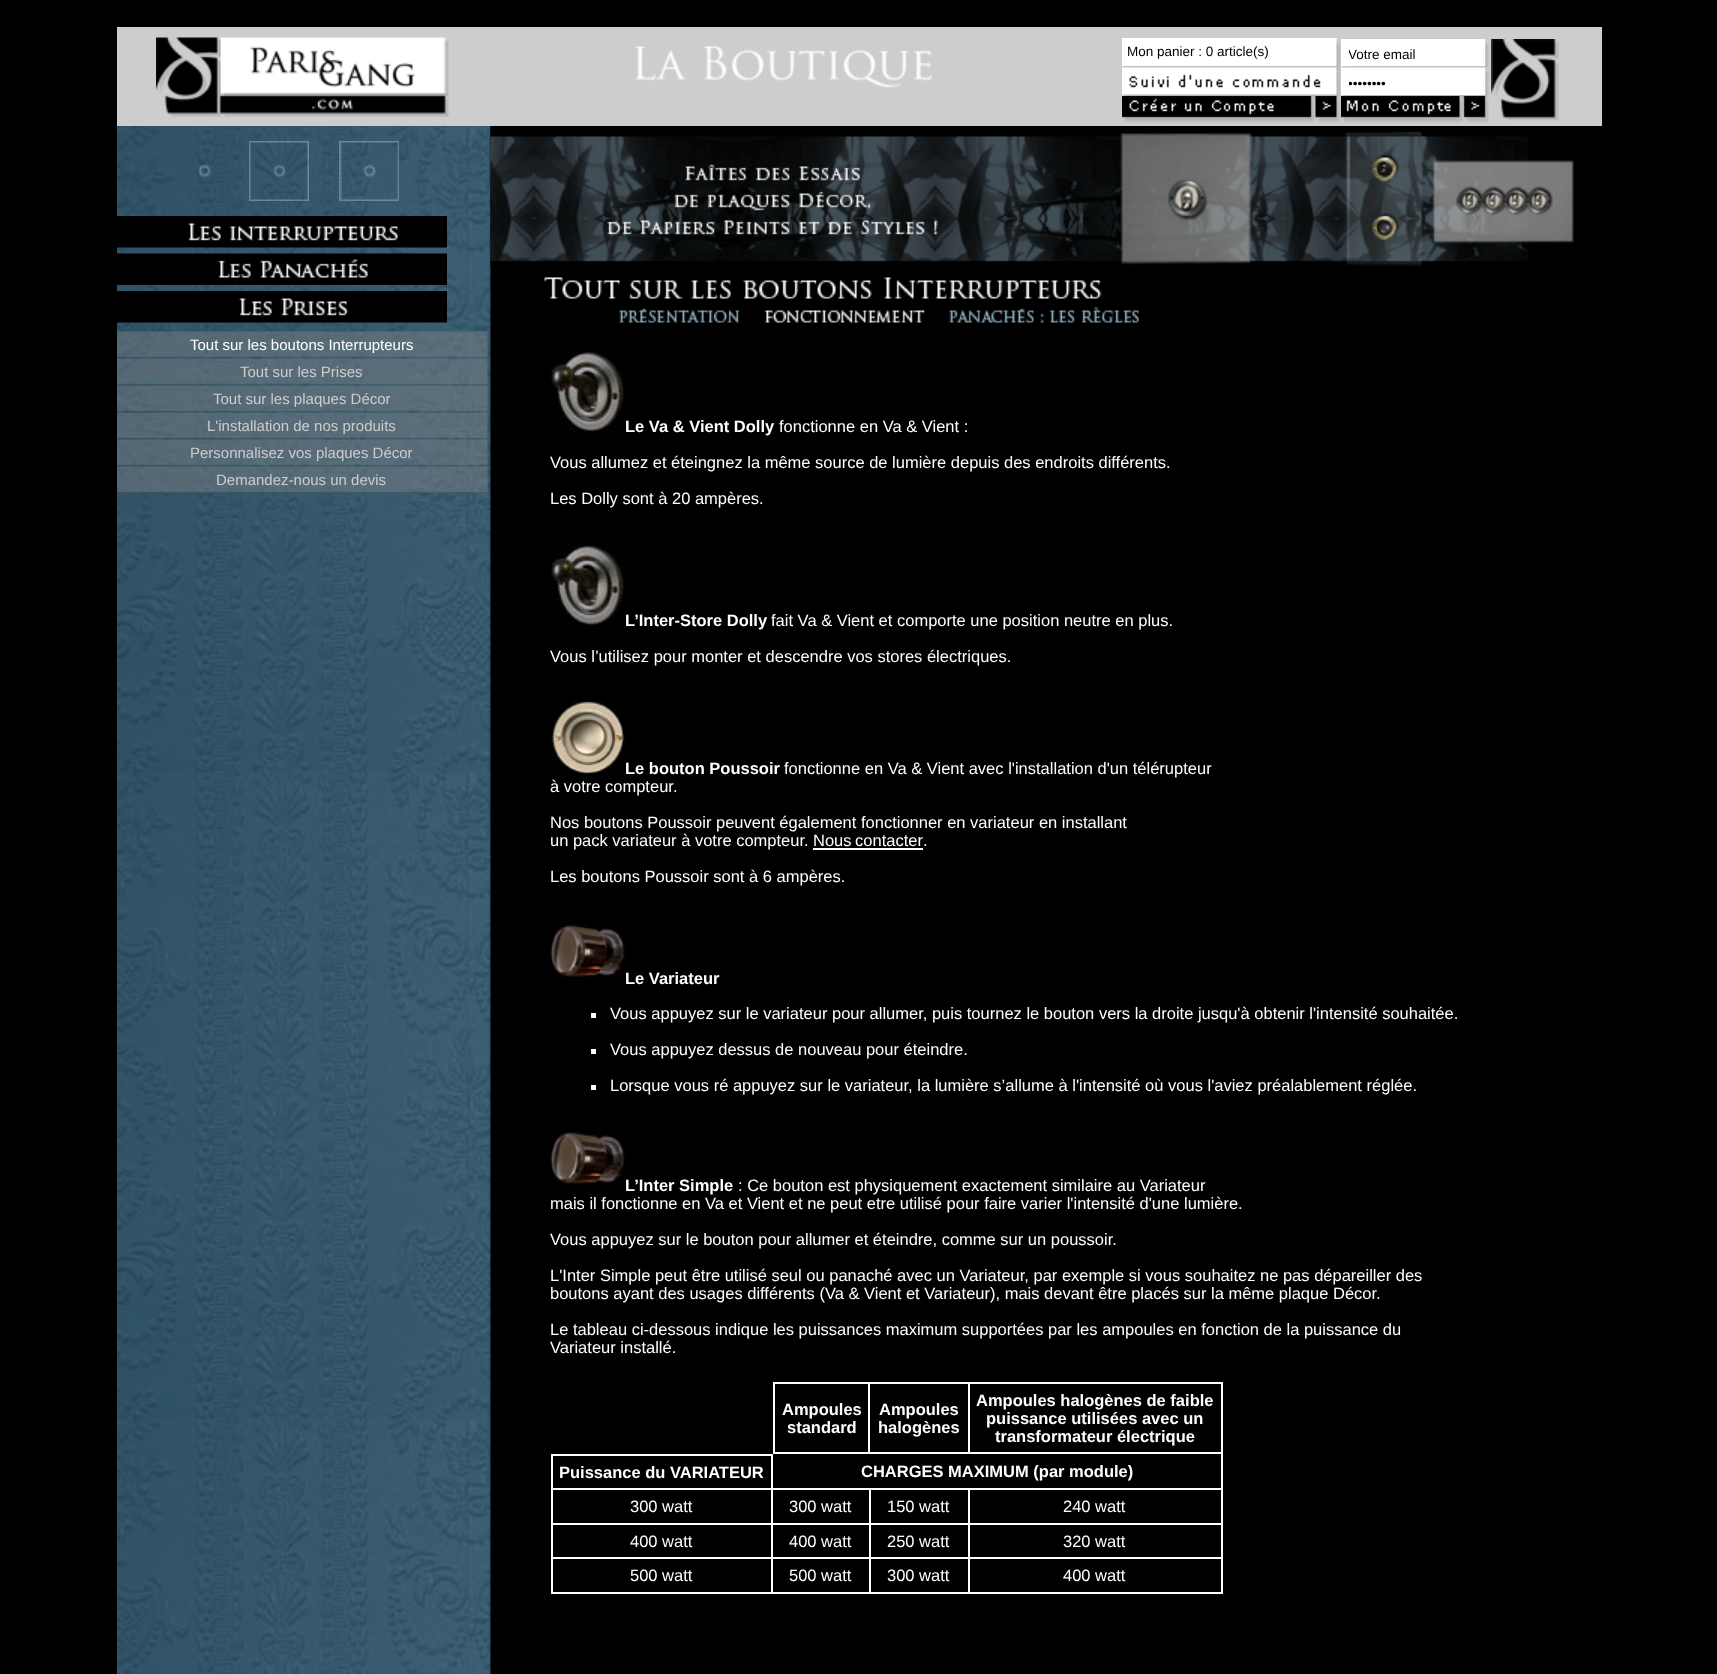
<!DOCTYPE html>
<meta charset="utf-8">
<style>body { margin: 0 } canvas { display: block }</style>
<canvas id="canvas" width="1717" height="1674"></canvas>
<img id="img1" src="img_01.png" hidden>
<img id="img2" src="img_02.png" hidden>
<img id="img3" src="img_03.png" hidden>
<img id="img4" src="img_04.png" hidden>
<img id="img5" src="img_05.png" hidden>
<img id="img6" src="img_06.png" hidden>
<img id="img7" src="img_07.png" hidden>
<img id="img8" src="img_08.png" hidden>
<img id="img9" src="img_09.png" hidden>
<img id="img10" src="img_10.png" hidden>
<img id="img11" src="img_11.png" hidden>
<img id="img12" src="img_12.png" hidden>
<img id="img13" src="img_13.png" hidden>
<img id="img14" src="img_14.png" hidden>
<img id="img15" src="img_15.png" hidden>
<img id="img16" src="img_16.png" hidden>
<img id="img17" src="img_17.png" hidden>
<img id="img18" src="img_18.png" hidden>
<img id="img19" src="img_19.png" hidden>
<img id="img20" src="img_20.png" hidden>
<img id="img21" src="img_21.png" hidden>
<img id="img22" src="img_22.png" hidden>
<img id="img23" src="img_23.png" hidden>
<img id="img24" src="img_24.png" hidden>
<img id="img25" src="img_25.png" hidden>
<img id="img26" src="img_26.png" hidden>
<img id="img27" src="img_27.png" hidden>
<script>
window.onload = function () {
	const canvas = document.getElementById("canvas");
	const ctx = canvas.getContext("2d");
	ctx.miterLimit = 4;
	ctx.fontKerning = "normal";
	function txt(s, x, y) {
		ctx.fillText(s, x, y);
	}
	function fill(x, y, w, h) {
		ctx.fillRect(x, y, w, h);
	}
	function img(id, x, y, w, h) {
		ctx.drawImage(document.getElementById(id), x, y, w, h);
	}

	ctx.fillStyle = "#000000";
	fill(0, 0, 1717, 1674);
	ctx.fillStyle = "#CDCDCD";
	fill(117, 27, 1485, 99);
	img("img1", 156, 37, 293, 80);
	img("img2", 634, 46, 298, 42);
	ctx.fillStyle = "#FFFFFF";
	fill(1122, 38, 215, 27);
	img("img3", 1122, 65, 215, 3);
	img("img4", 1336, 39, 5, 29);
	img("img5", 1122, 67, 219, 29);
	img("img6", 1122, 96, 219, 27);
	img("img7", 1341, 39, 148, 29);
	fill(1341, 41, 144, 25);
	img("img8", 1341, 67, 148, 29);
	fill(1341, 69, 144, 26);
	img("img9", 1341, 96, 148, 27);
	img("img10", 1491, 39, 68, 82);
	img("img11", 117, 126, 374, 1548);
	img("img12", 198, 159, 19, 34);
	img("img13", 249, 141, 60, 60);
	img("img14", 339, 141, 60, 60);
	img("img15", 117, 216, 330, 32);
	img("img16", 117, 253, 330, 32);
	img("img17", 117, 291, 330, 32);
	img("img18", 117, 331, 371, 163);
	img("img19", 490, 126, 1084, 143);
	img("img20", 544, 276, 558, 23);
	img("img21", 619, 308, 121, 15);
	img("img22", 764, 310, 161, 13);
	img("img23", 949, 307, 190, 16);
	img("img24", 550, 350, 74, 82);
	img("img25", 550, 543, 74, 83);
	img("img26", 550, 700, 75, 74);
	fill(813, 848, 110, 2);
	img("img27", 550, 921, 75, 60);
	fill(591, 1013, 5, 5);
	fill(591, 1049, 5, 5);
	fill(591, 1085, 5, 5);
	img("img27", 550, 1128, 75, 60);
	ctx.strokeStyle = "#FFFFFF";
	ctx.lineWidth = 2;
	ctx.strokeRect(774, 1383, 95, 70);
	fill(870, 1382, 99, 2);
	fill(968, 1382, 2, 72);
	fill(870, 1452, 99, 2);
	fill(969, 1382, 254, 2);
	fill(1221, 1382, 2, 142);
	fill(969, 1452, 254, 2);
	ctx.strokeRect(552, 1455, 220, 34);
	fill(773, 1488, 450, 2);
	fill(771, 1490, 2, 34);
	fill(551, 1523, 222, 2);
	fill(551, 1490, 2, 34);
	fill(869, 1490, 2, 34);
	fill(773, 1523, 97, 2);
	fill(968, 1490, 2, 34);
	fill(870, 1523, 353, 2);
	fill(771, 1524, 2, 69);
	fill(551, 1557, 222, 2);
	fill(551, 1524, 2, 35);
	fill(869, 1524, 2, 69);
	fill(773, 1557, 97, 2);
	fill(968, 1524, 2, 69);
	fill(870, 1557, 99, 2);
	fill(1221, 1524, 2, 69);
	fill(969, 1557, 254, 2);
	fill(551, 1592, 672, 2);
	fill(551, 1559, 2, 34);
	ctx.font = "13.5px Liberation Sans";
	ctx.fillStyle = "#000000";
	txt("Mon panier : 0 article(s)", 1127, 56);
	ctx.save();
	ctx.beginPath();
	ctx.rect(1349, 48, 136, 15);
	ctx.clip();
	txt("Votre email", 1348, 59);
	ctx.restore();
	ctx.save();
	ctx.beginPath();
	ctx.rect(1349, 77, 136, 15);
	ctx.clip();
	txt("••••••••", 1348, 88);
	ctx.restore();
	ctx.font = "15px Liberation Sans";
	ctx.fillStyle = "#FFFFFF";
	txt("Tout sur les boutons Interrupteurs", 190, 350);
	ctx.fillStyle = "#CDCDCD";
	txt("Tout sur les Prises", 240, 377);
	txt("Tout sur les plaques Décor", 213, 404);
	txt("L'installation de nos produits", 207, 431);
	txt("Personnalisez vos plaques Décor", 190, 458);
	txt("Demandez-nous un devis", 216, 485);
	ctx.font = "bold 16.5px Liberation Sans";
	ctx.fillStyle = "#FFFFFF";
	txt("Le Va & Vient Dolly", 625, 432);
	ctx.font = "16.5px Liberation Sans";
	txt("fonctionne en Va & Vient :", 779, 432);
	txt("Vous allumez et éteingnez la même source de lumière depuis des endroits différents.", 550, 468);
	txt("Les Dolly sont à 20 ampères.", 550, 504);
	ctx.font = "bold 16.5px Liberation Sans";
	txt("L’Inter-Store Dolly", 625, 626);
	ctx.font = "16.5px Liberation Sans";
	txt("fait Va & Vient et comporte une position neutre en plus.", 771, 626);
	txt("Vous l’utilisez pour monter et descendre vos stores électriques.", 550, 662);
	ctx.font = "bold 16.5px Liberation Sans";
	txt("Le bouton Poussoir", 625, 774);
	ctx.font = "16.5px Liberation Sans";
	txt("fonctionne en Va & Vient avec l'installation d'un télérupteur", 784, 774);
	txt("à votre compteur.", 550, 792);
	txt("Nos boutons Poussoir peuvent également fonctionner en variateur en installant", 550, 828);
	txt("un pack variateur à votre compteur.", 550, 846);
	ctx.wordSpacing = "-1px";
	txt("Nous contacter", 813, 846);
	ctx.wordSpacing = "0px";
	txt(".", 923, 846);
	txt("Les boutons Poussoir sont à 6 ampères.", 550, 882);
	ctx.font = "bold 16.5px Liberation Sans";
	txt("Le Variateur", 625, 984);
	ctx.font = "16.5px Liberation Sans";
	txt("Vous appuyez sur le variateur pour allumer, puis tournez le bouton vers la droite jusqu'à obtenir l'intensité souhaitée.", 610, 1019);
	txt("Vous appuyez dessus de nouveau pour éteindre.", 610, 1055);
	txt("Lorsque vous ré appuyez sur le variateur, la lumière s’allume à l'intensité où vous l'aviez préalablement réglée.", 610, 1091);
	ctx.font = "bold 16.5px Liberation Sans";
	txt("L’Inter Simple", 625, 1191);
	ctx.font = "16.5px Liberation Sans";
	txt(": Ce bouton est physiquement exactement similaire au Variateur", 738, 1191);
	txt("mais il fonctionne en Va et Vient et ne peut etre utilisé pour faire varier l'intensité d'une lumière.", 550, 1209);
	txt("Vous appuyez sur le bouton pour allumer et éteindre, comme sur un poussoir.", 550, 1245);
	txt("L'Inter Simple peut être utilisé seul ou panaché avec un Variateur, par exemple si vous souhaitez ne pas dépareiller des", 550, 1281);
	txt("boutons ayant des usages différents (Va & Vient et Variateur), mais devant être placés sur la même plaque Décor.", 550, 1299);
	txt("Le tableau ci-dessous indique les puissances maximum supportées par les ampoules en fonction de la puissance du", 550, 1335);
	txt("Variateur installé.", 550, 1353);
	ctx.font = "bold 16.5px Liberation Sans";
	txt("Ampoules", 782, 1415);
	txt("standard", 787, 1433);
	txt("Ampoules", 879, 1415);
	txt("halogènes", 878, 1433);
	txt("Ampoules halogènes de faible", 976, 1406);
	txt("puissance utilisées avec un", 986, 1424);
	txt("transformateur électrique", 995, 1442);
	txt("Puissance du VARIATEUR", 559, 1478);
	txt("CHARGES MAXIMUM (par module)", 861, 1477);
	ctx.font = "16.5px Liberation Sans";
	txt("300 watt", 630, 1512);
	txt("300 watt", 789, 1512);
	txt("150 watt", 887, 1512);
	txt("240 watt", 1063, 1512);
	txt("400 watt", 630, 1547);
	txt("400 watt", 789, 1547);
	txt("250 watt", 887, 1547);
	txt("320 watt", 1063, 1547);
	txt("500 watt", 630, 1581);
	txt("500 watt", 789, 1581);
	txt("300 watt", 887, 1581);
	txt("400 watt", 1063, 1581);
};
</script>
